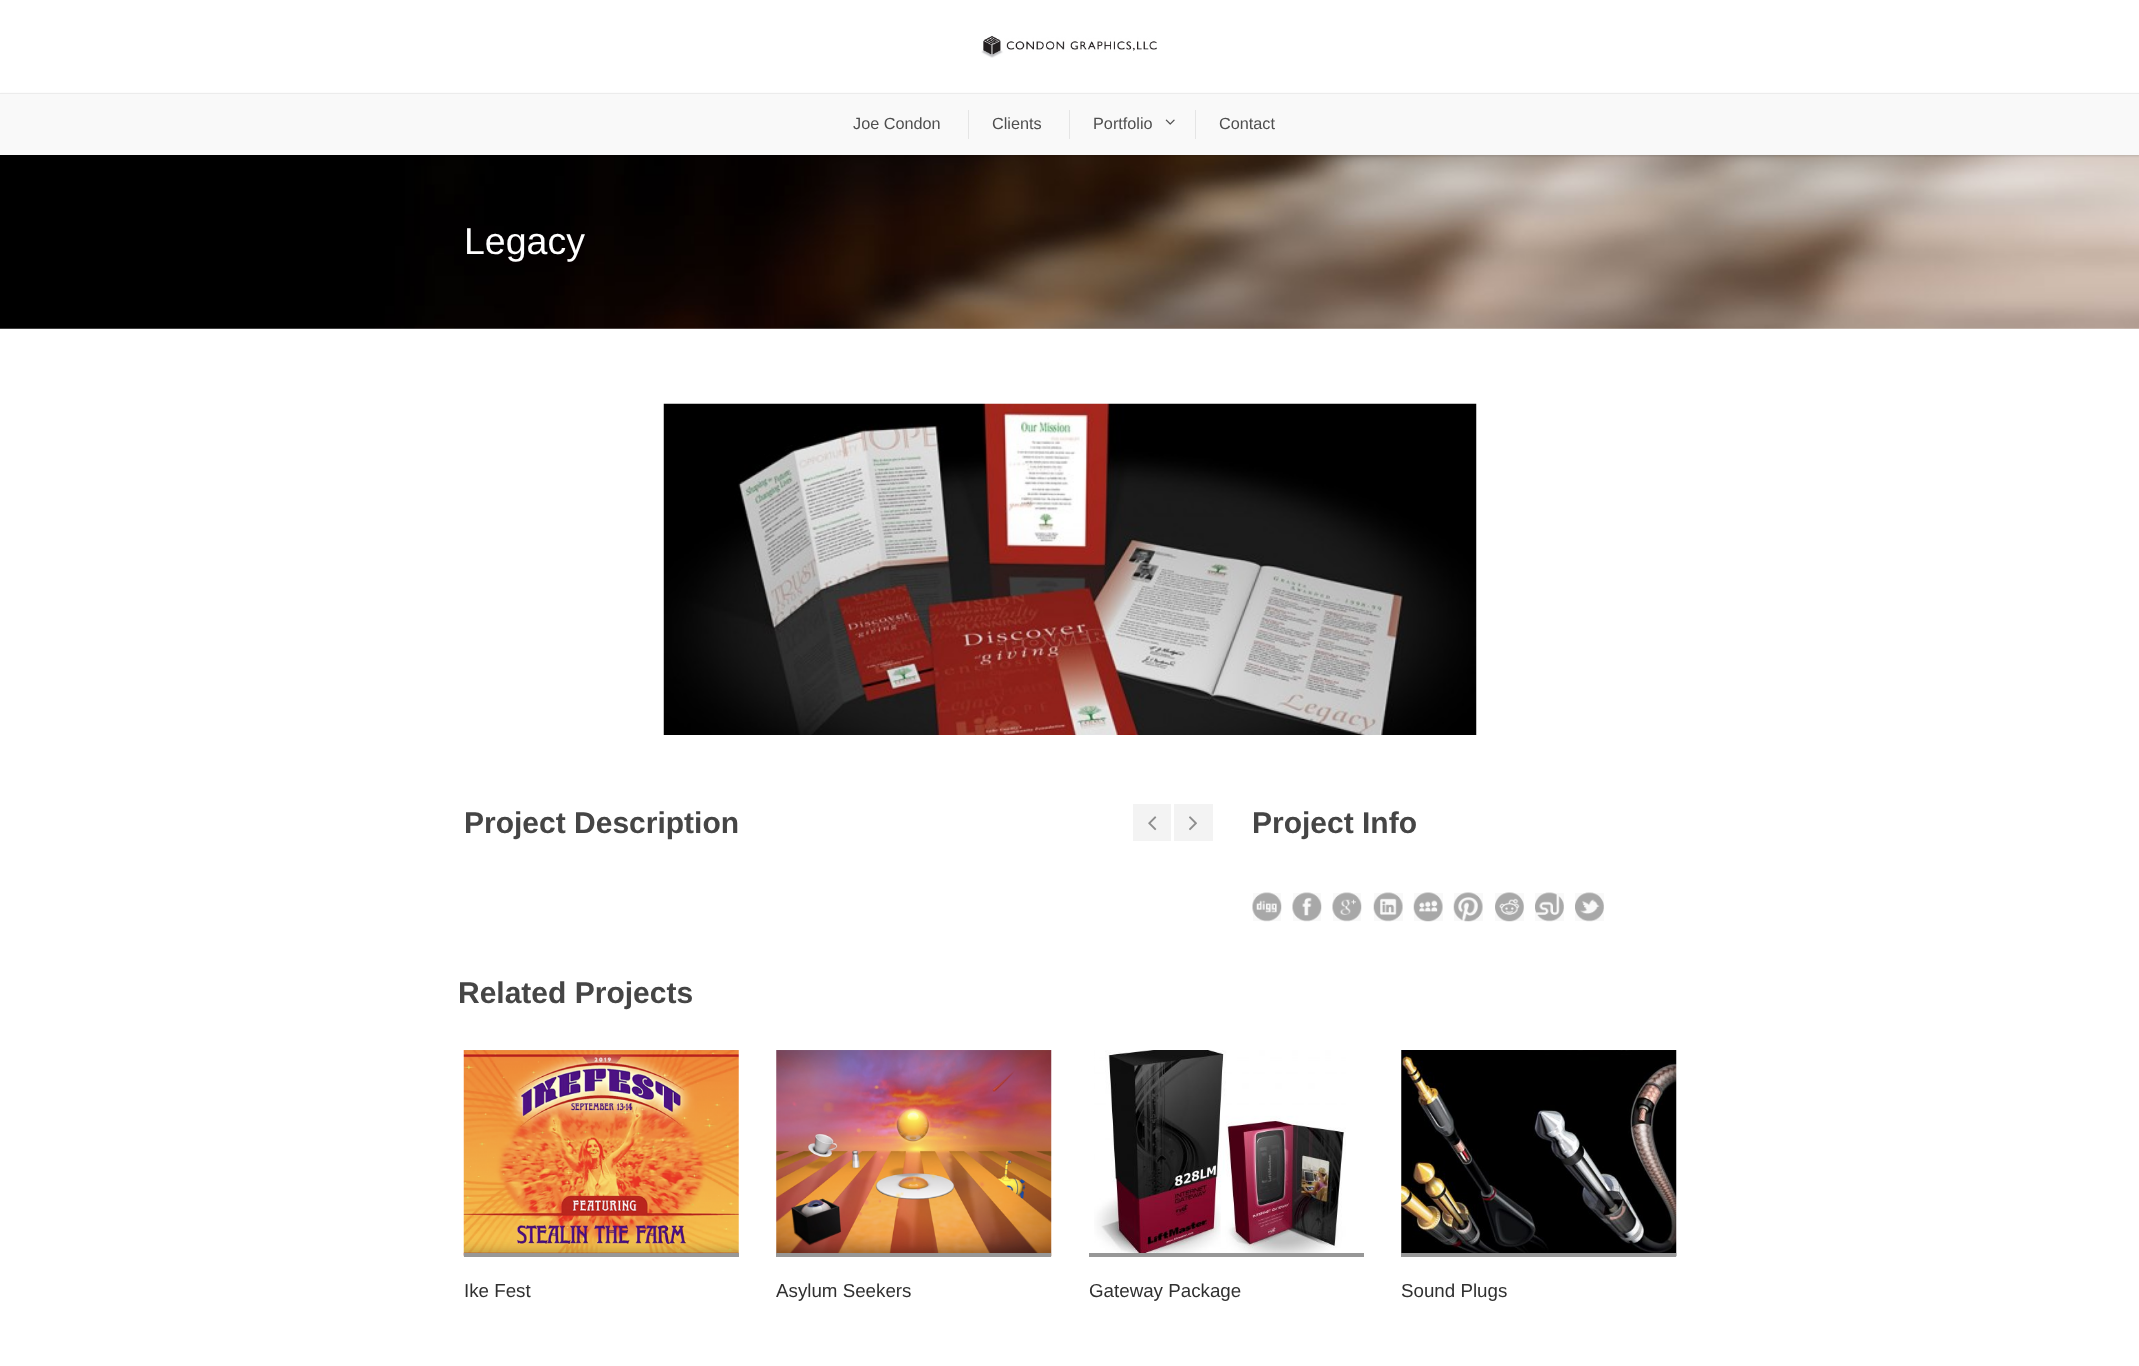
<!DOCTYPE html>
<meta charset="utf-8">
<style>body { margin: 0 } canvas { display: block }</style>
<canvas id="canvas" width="2139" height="1366"></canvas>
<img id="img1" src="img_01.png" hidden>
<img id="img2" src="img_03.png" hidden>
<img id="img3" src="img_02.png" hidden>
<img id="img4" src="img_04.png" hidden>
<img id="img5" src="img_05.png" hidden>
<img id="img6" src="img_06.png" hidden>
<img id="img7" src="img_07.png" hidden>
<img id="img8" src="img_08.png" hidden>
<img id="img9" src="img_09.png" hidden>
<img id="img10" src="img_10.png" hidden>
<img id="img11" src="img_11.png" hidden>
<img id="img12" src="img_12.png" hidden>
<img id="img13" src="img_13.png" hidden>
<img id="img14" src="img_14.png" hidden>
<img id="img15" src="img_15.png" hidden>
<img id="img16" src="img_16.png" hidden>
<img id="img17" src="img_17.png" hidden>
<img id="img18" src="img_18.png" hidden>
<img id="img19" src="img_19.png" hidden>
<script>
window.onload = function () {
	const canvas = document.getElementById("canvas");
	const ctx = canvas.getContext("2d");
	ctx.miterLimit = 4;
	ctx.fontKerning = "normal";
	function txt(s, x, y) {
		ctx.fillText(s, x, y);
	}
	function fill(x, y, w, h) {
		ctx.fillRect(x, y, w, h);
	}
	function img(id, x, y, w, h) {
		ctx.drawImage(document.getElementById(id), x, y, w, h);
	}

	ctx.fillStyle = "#FFFFFF";
	fill(0, 0, 2139, 1366);
	img("img1", 981, 35, 176, 23);
	img("img2", 0, 155, 2139, 174);
	ctx.fillStyle = "rgba(0, 0, 0, 0.15)";
	ctx.filter = "blur(1px)";
	ctx.beginPath();
	ctx.rect(0, 94, 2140, 62);
	ctx.fill();
	ctx.filter = "none";
	ctx.fillStyle = "#F9F9F9";
	fill(0, 94, 2139, 61);
	ctx.fillStyle = "#ECECEC";
	fill(0, 93, 2139, 1);
	ctx.fillStyle = "#E5E5E5";
	fill(968, 110, 1, 29);
	fill(1069, 110, 1, 29);
	img("img3", 1165, 119, 10, 6);
	fill(1195, 110, 1, 29);
	img("img4", 663, 403, 814, 332);
	ctx.fillStyle = "#F3F3F3";
	fill(1133, 804, 38, 37);
	img("img5", 1148, 816, 9, 15);
	fill(1174, 804, 39, 37);
	img("img6", 1189, 816, 8, 15);
	ctx.fillStyle = "#F9F9F9";
	fill(1253, 893, 28, 28);
	img("img7", 1252, 892, 30, 30);
	fill(1293, 893, 28, 28);
	img("img8", 1292, 892, 30, 30);
	fill(1333, 893, 28, 28);
	img("img9", 1332, 892, 30, 30);
	fill(1374, 893, 29, 28);
	img("img10", 1373, 892, 30, 30);
	fill(1414, 893, 29, 28);
	img("img11", 1413, 892, 30, 30);
	fill(1454, 893, 29, 28);
	img("img12", 1453, 892, 30, 30);
	fill(1495, 893, 29, 28);
	img("img13", 1495, 892, 29, 30);
	fill(1535, 893, 29, 28);
	img("img14", 1535, 892, 29, 30);
	fill(1575, 893, 29, 28);
	img("img15", 1575, 892, 29, 30);
	img("img16", 463, 1050, 276, 207);
	ctx.fillStyle = "#979797";
	fill(464, 1253, 275, 4);
	img("img17", 776, 1050, 276, 207);
	fill(776, 1253, 275, 4);
	img("img18", 1094, 1050, 252, 203);
	fill(1089, 1253, 275, 4);
	img("img19", 1401, 1050, 276, 207);
	fill(1401, 1253, 275, 4);
	ctx.font = "16.25px Liberation Sans";
	ctx.fillStyle = "#4F4F4F";
	txt("Joe Condon", 853, 129);
	txt("Clients", 992, 129);
	txt("Portfolio", 1093, 129);
	txt("Contact", 1219, 129);
	ctx.font = "37.5px Liberation Sans";
	ctx.fillStyle = "#FFFFFF";
	txt("Legacy", 464, 254);
	ctx.font = "bold 30px Liberation Sans";
	ctx.fillStyle = "#454545";
	txt("Project Description", 464, 833);
	txt("Project Info", 1252, 833);
	txt("Related Projects", 458, 1003);
	ctx.font = "18.75px Liberation Sans";
	ctx.fillStyle = "#303030";
	txt("Ike Fest", 464, 1297);
	txt("Asylum Seekers", 776, 1297);
	txt("Gateway Package", 1089, 1297);
	txt("Sound Plugs", 1401, 1297);
};
</script>
